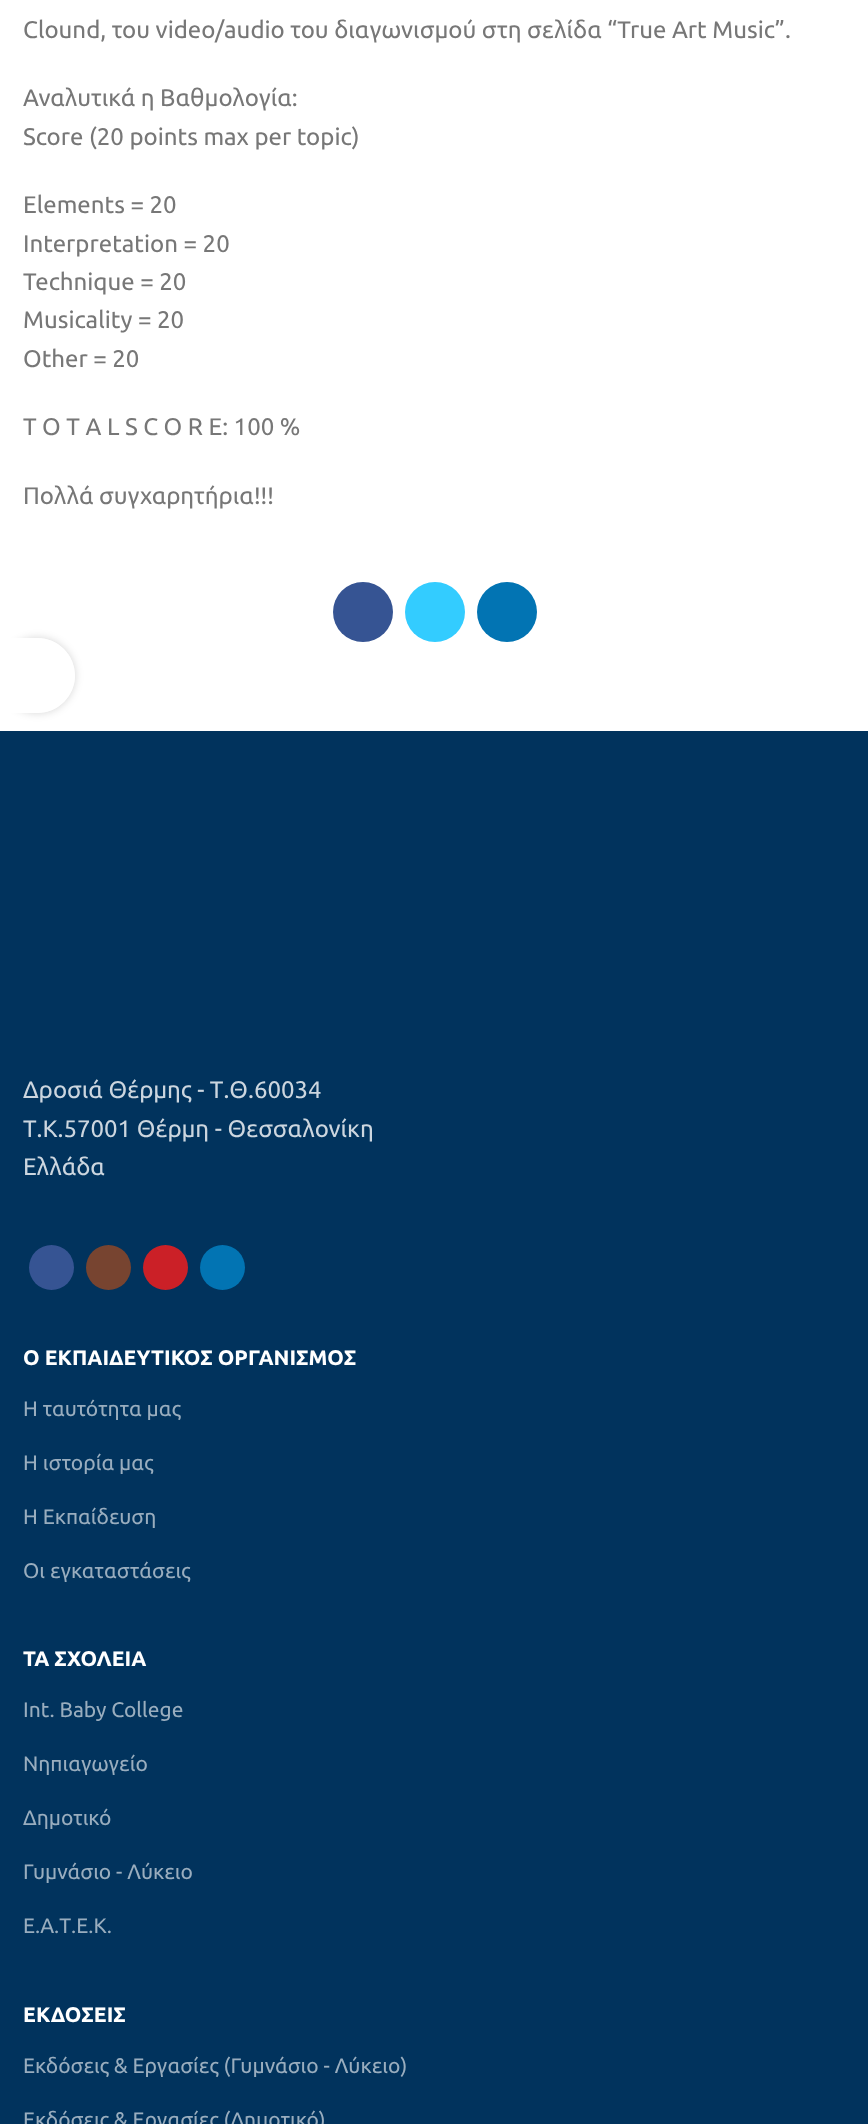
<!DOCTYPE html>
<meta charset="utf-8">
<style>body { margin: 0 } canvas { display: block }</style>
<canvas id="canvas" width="868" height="2124"></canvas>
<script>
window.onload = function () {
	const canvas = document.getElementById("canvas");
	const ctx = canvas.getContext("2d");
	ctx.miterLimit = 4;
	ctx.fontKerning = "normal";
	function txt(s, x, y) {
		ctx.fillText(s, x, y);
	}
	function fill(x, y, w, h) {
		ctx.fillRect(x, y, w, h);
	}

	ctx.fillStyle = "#FFFFFF";
	fill(0, 0, 868, 2124);
	ctx.fillStyle = "#365493";
	ctx.beginPath();
	ctx.arc(363, 612, 30, 0, Math.PI * 2);
	ctx.fill();
	ctx.fillStyle = "#33CCFF";
	ctx.beginPath();
	ctx.arc(435, 612, 30, 0, Math.PI * 2);
	ctx.fill();
	ctx.fillStyle = "#0274B3";
	ctx.beginPath();
	ctx.arc(507, 612, 30, 0, Math.PI * 2);
	ctx.fill();
	ctx.fillStyle = "#01335D";
	fill(0, 731, 868, 1393);
	ctx.fillStyle = "#365493";
	ctx.beginPath();
	ctx.arc(51.5, 1267.5, 22.5, 0, Math.PI * 2);
	ctx.fill();
	ctx.fillStyle = "#774430";
	ctx.beginPath();
	ctx.arc(108.5, 1267.5, 22.5, 0, Math.PI * 2);
	ctx.fill();
	ctx.fillStyle = "#CB2027";
	ctx.beginPath();
	ctx.arc(165.5, 1267.5, 22.5, 0, Math.PI * 2);
	ctx.fill();
	ctx.fillStyle = "#0274B3";
	ctx.beginPath();
	ctx.arc(222.5, 1267.5, 22.5, 0, Math.PI * 2);
	ctx.fill();
	ctx.save();
	ctx.beginPath();
	ctx.moveTo(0, 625);
	ctx.lineTo(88, 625);
	ctx.lineTo(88, 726);
	ctx.lineTo(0, 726);
	ctx.closePath();
	ctx.moveTo(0, 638);
	ctx.lineTo(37.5, 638);
	ctx.bezierCurveTo(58, 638, 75, 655, 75, 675.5);
	ctx.bezierCurveTo(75, 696, 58, 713, 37.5, 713);
	ctx.lineTo(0, 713);
	ctx.closePath();
	ctx.clip("evenodd");
	ctx.fillStyle = "rgba(0, 0, 0, 0.17)";
	ctx.filter = "blur(4px)";
	ctx.beginPath();
	ctx.roundRect(0, 638, 75, 75, 37.5);
	ctx.fill();
	ctx.filter = "none";
	ctx.restore();
	ctx.fillStyle = "rgba(255, 255, 255, 0.9)";
	ctx.beginPath();
	ctx.roundRect(0, 638, 75, 75, [0, 37.5, 37.5, 0]);
	ctx.fill();
	ctx.font = "24px Ubuntu";
	ctx.fillStyle = "#777777";
	txt("Clound, του video/audio του διαγωνισμού στη σελίδα “True Art Music”.", 23, 38);
	txt("Αναλυτικά η Βαθμολογία:", 23, 106);
	txt("Score (20 points max per topic)", 23, 145);
	txt("Elements = 20", 23, 213);
	txt("Interpretation = 20", 23, 252);
	txt("Technique = 20", 23, 290);
	txt("Musicality = 20", 23, 328);
	txt("Other = 20", 23, 367);
	txt("T Ο Τ Α L S C O R E: 100 %", 23, 435);
	txt("Πολλά συγχαρητήρια!!!", 23, 504);
	ctx.fillStyle = "#CCD6DF";
	txt("Δροσιά Θέρμης - Τ.Θ.60034", 23, 1098);
	txt("Τ.Κ.57001 Θέρμη - Θεσσαλονίκη", 23, 1137);
	txt("Ελλάδα", 23, 1175);
	ctx.font = "bold 21px Ubuntu";
	ctx.fillStyle = "#FFFFFF";
	txt("Ο ΕΚΠΑΙΔΕΥΤΙΚΟΣ ΟΡΓΑΝΙΣΜΟΣ", 23, 1365);
	ctx.font = "21px Ubuntu";
	ctx.fillStyle = "#99ADBE";
	txt("Η ταυτότητα μας", 23, 1416);
	txt("Η ιστορία μας", 23, 1470);
	txt("Η Εκπαίδευση", 23, 1524);
	txt("Οι εγκαταστάσεις", 23, 1578);
	ctx.font = "bold 21px Ubuntu";
	ctx.fillStyle = "#FFFFFF";
	txt("ΤΑ ΣΧΟΛΕΙΑ", 23, 1666);
	ctx.font = "21px Ubuntu";
	ctx.fillStyle = "#99ADBE";
	txt("Int. Baby College", 23, 1717);
	txt("Νηπιαγωγείο", 23, 1771);
	txt("Δημοτικό", 23, 1825);
	txt("Γυμνάσιο - Λύκειο", 23, 1879);
	txt("Ε.Α.Τ.Ε.Κ.", 23, 1933);
	ctx.font = "bold 21px Ubuntu";
	ctx.fillStyle = "#FFFFFF";
	txt("ΕΚΔΟΣΕΙΣ", 23, 2022);
	ctx.font = "21px Ubuntu";
	ctx.fillStyle = "#99ADBE";
	txt("Εκδόσεις & Εργασίες (Γυμνάσιο - Λύκειο)", 23, 2073);
	txt("Εκδόσεις & Εργασίες (Δημοτικό)", 23, 2127);
};
</script>
